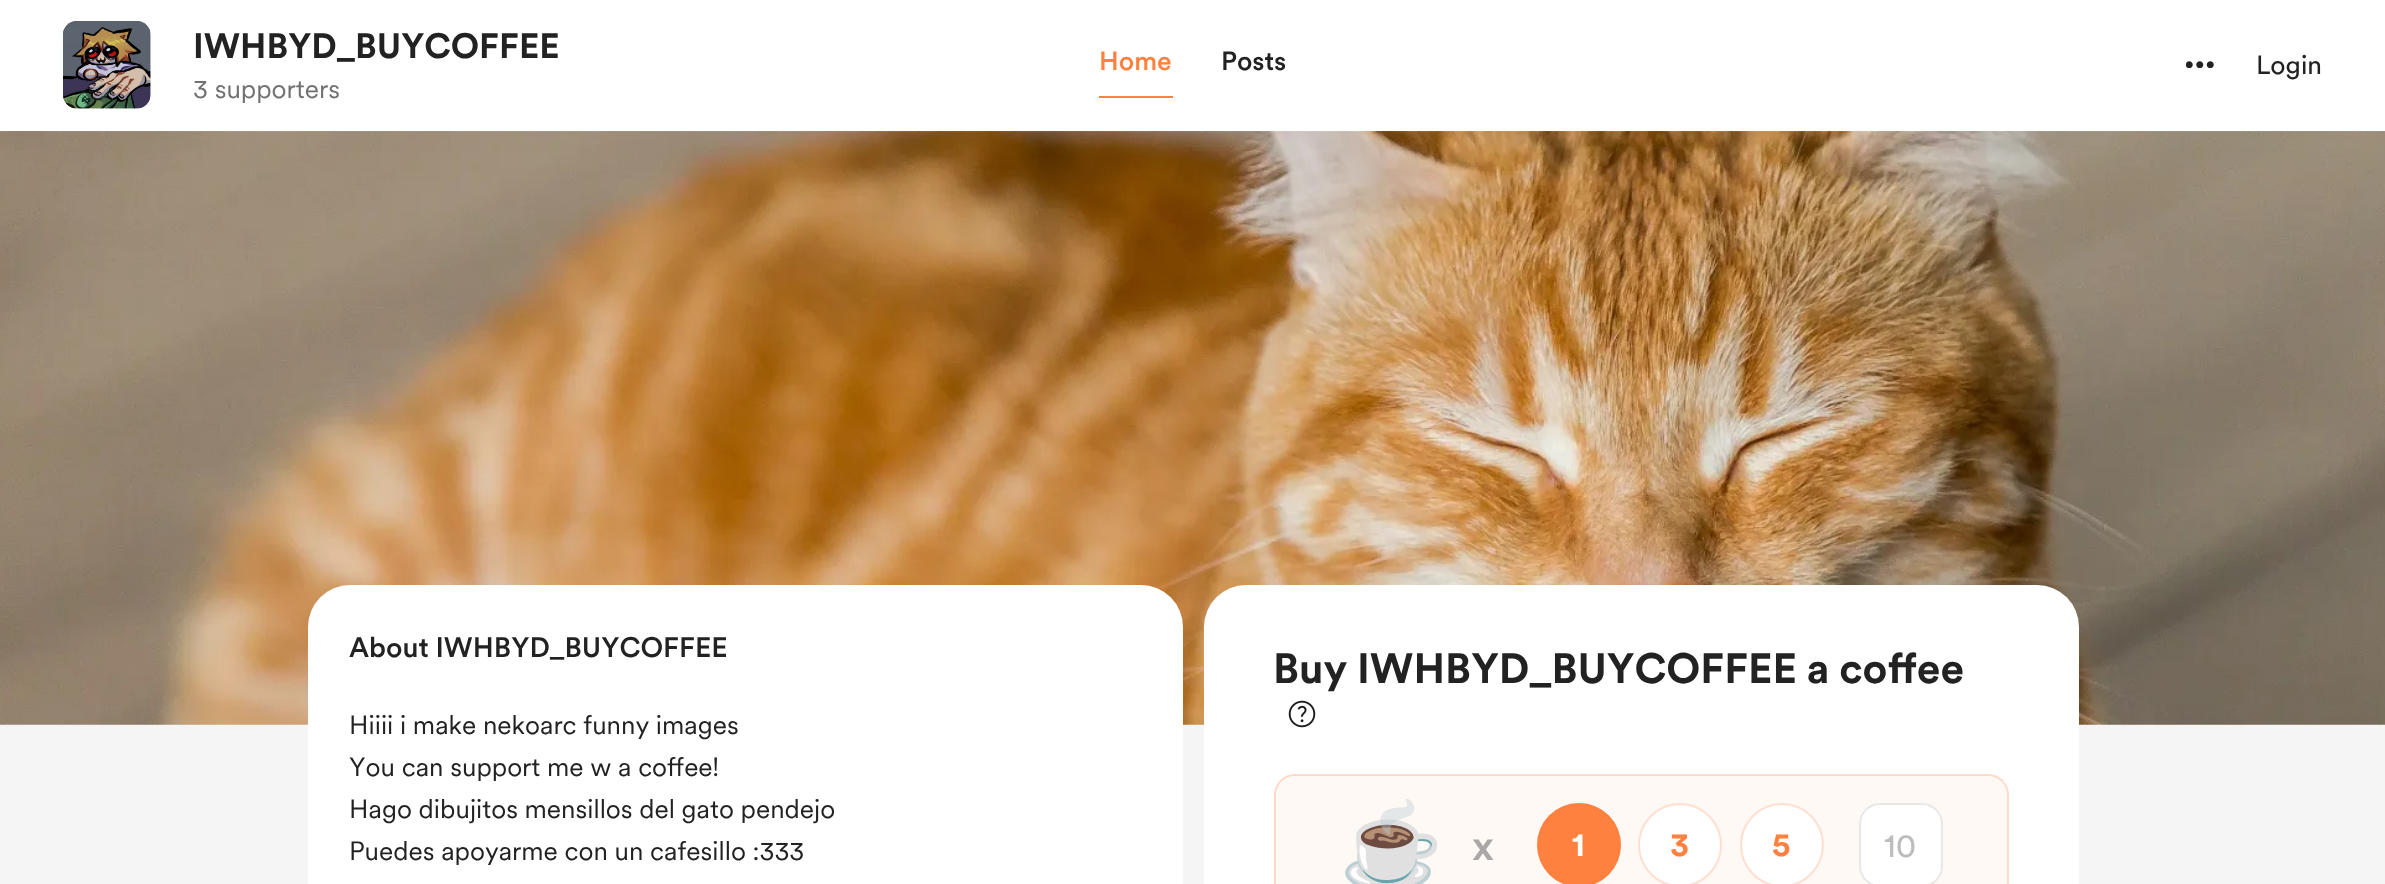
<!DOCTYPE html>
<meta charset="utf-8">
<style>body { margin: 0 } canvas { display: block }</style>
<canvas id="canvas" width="2385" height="884"></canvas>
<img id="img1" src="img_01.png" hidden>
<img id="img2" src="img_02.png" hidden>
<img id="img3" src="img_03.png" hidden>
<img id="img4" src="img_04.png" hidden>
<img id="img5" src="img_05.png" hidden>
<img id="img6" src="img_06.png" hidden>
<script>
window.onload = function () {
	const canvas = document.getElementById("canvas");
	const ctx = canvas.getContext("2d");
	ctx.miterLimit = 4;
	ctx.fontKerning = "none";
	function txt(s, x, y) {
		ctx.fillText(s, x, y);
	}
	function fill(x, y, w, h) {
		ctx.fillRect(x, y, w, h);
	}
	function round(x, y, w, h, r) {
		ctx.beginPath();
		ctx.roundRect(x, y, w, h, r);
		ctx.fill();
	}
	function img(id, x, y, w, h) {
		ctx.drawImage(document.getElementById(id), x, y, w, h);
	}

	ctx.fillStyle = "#FFFFFF";
	fill(0, 0, 2385, 884);
	img("img1", 63, 21, 88, 88);
	img("img2", 63, 21, 88, 88);
	ctx.fillStyle = "#FF813F";
	fill(1099, 96, 74, 2);
	img("img3", 2186, 61, 28, 7);
	ctx.fillStyle = "#F5F5F5";
	fill(0, 131, 2385, 753);
	img("img4", 0, 131, 2385, 594);
	img("img5", 0, 131, 2385, 594);
	ctx.fillStyle = "#FFFFFF";
	round(308, 585, 875, 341, 42);
	round(1204, 585, 875, 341, 42);
	img("img6", 1288, 700, 28, 28);
	ctx.fillStyle = "#FFF9F6";
	round(1274, 774, 735, 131, 21);
	ctx.beginPath();
	ctx.roundRect(1275, 775, 733, 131, 20);
	ctx.strokeStyle = "rgba(255, 129, 63, 0.25)";
	ctx.lineWidth = 2;
	ctx.stroke();
	ctx.fillStyle = "#FF813F";
	ctx.beginPath();
	ctx.arc(1579, 845, 42, 0, Math.PI * 2);
	ctx.fill();
	ctx.beginPath();
	ctx.arc(1579, 845, 41, 0, Math.PI * 2);
	ctx.stroke();
	ctx.fillStyle = "#FFFFFF";
	ctx.beginPath();
	ctx.arc(1680, 845, 42, 0, Math.PI * 2);
	ctx.fill();
	ctx.beginPath();
	ctx.arc(1680, 845, 41, 0, Math.PI * 2);
	ctx.stroke();
	ctx.beginPath();
	ctx.arc(1782, 845, 42, 0, Math.PI * 2);
	ctx.fill();
	ctx.beginPath();
	ctx.arc(1782, 845, 41, 0, Math.PI * 2);
	ctx.stroke();
	round(1859, 803, 84, 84, 21);
	ctx.beginPath();
	ctx.roundRect(1860, 804, 82, 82, 20);
	ctx.strokeStyle = "rgba(34, 34, 34, 0.1)";
	ctx.stroke();
	ctx.font = "bold 35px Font";
	ctx.fillStyle = "#222222";
	txt("IWHBYD_BUYCOFFEE", 193, 58);
	ctx.font = "26.25px Font";
	ctx.fillStyle = "#717171";
	txt("3 supporters", 193, 98);
	ctx.font = "500 26.25px Font";
	ctx.fillStyle = "#FF813F";
	txt("Home", 1099, 70);
	ctx.fillStyle = "#222222";
	txt("Posts", 1221, 70);
	ctx.font = "26.25px 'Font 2'";
	txt("Login", 2256, 74);
	ctx.font = "500 28px Font";
	txt("About IWHBYD_BUYCOFFEE", 349, 657);
	ctx.font = "26.25px Font";
	txt("Hiiii i make nekoarc funny images", 349, 734);
	txt("You can support me w a coffee!", 349, 776);
	txt("Hago dibujitos mensillos del gato pendejo", 349, 818);
	txt("Puedes apoyarme con un cafesillo :333", 349, 860);
	ctx.font = "bold 42px Font";
	txt("Buy IWHBYD_BUYCOFFEE a coffee", 1273, 683);
	ctx.font = "84px Noto Color Emoji";
	ctx.fillStyle = "#000000";
	txt("☕", 1339, 875);
	ctx.font = "500 42px Font";
	ctx.fillStyle = "#AAA7A6";
	txt("x", 1472, 860);
	ctx.font = "bold 33px Font";
	ctx.fillStyle = "#FFFFFF";
	txt("1", 1572, 856);
	ctx.fillStyle = "#FF813F";
	txt("3", 1670, 856);
	txt("5", 1772, 856);
	ctx.font = "33px 'Font 2'";
	ctx.fillStyle = "#BDBDBD";
	txt("10", 1884, 857);
};
</script>
